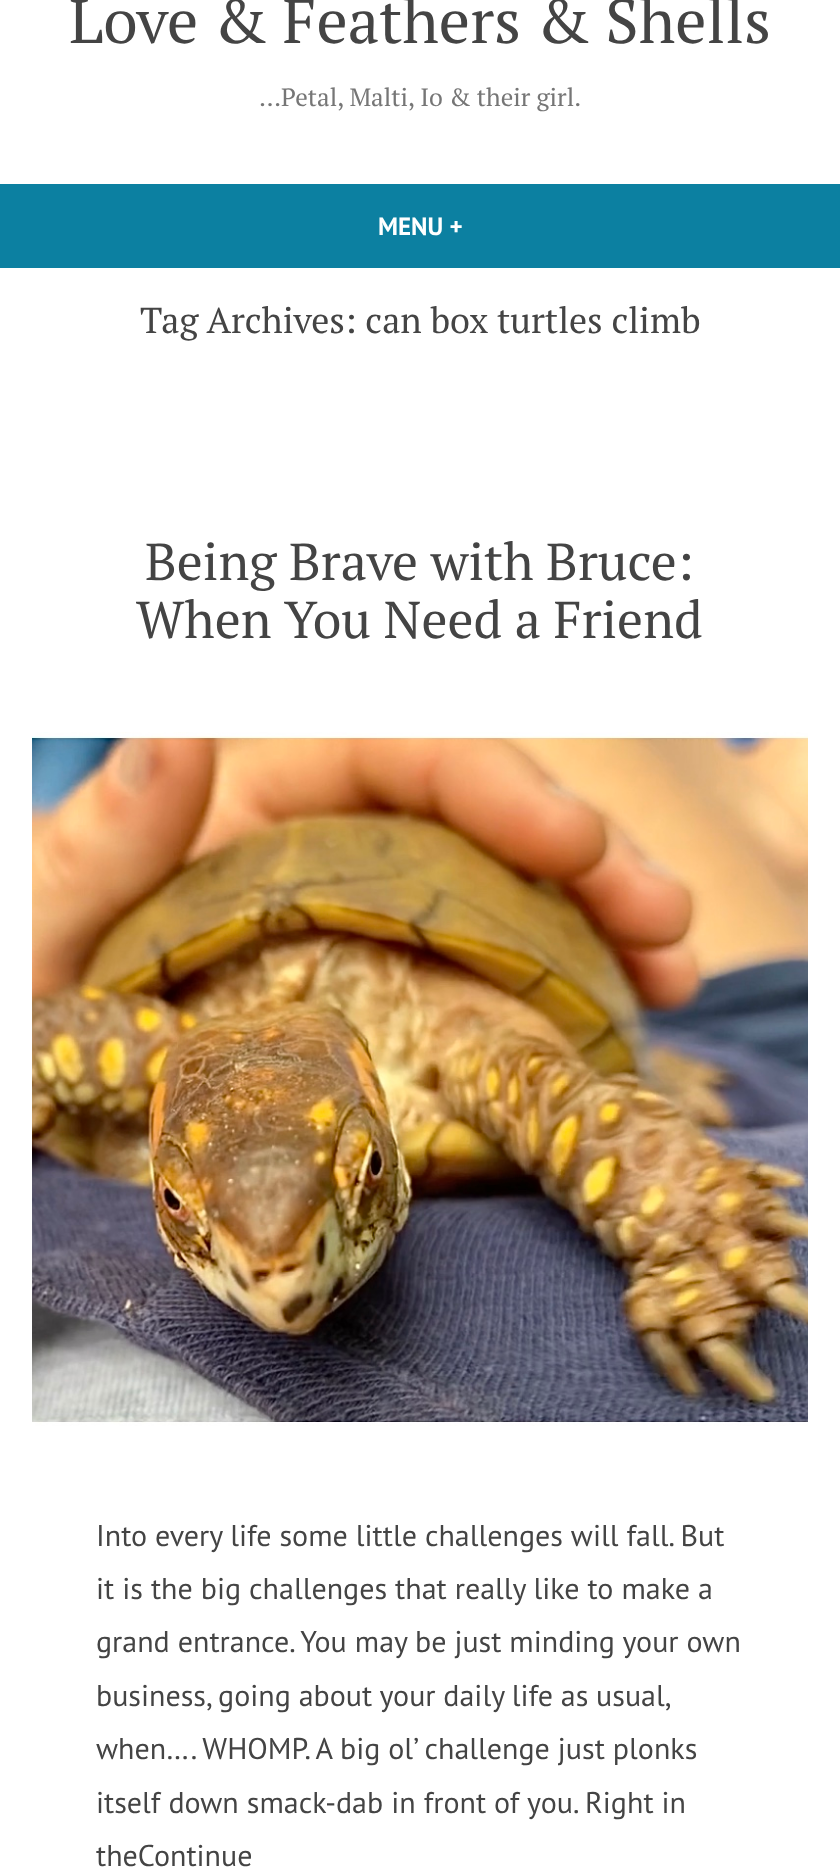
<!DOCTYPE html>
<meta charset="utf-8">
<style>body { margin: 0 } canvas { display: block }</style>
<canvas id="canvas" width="840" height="1867"></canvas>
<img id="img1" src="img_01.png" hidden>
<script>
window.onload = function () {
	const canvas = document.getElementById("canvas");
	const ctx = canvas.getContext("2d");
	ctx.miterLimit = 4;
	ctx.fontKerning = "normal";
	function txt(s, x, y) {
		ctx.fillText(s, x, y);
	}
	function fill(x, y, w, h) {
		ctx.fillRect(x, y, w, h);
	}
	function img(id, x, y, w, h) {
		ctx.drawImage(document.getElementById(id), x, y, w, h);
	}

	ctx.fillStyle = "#FFFFFF";
	fill(0, 0, 840, 1867);
	ctx.fillStyle = "#0C80A1";
	fill(0, 184, 840, 84);
	img("img1", 32, 732, 776, 694);
	ctx.font = "62.25px PT Serif";
	ctx.fillStyle = "#444444";
	txt("Love & Feathers & Shells", 69, 43);
	ctx.font = "25px PT Serif";
	ctx.fillStyle = "#767676";
	txt("…Petal, Malti, Io & their girl.", 259, 106);
	ctx.font = "bold 25px PT Sans";
	ctx.fillStyle = "#FFFFFF";
	txt("MENU +", 378, 235);
	ctx.font = "36px PT Serif";
	ctx.fillStyle = "#444444";
	txt("Tag Archives: can box turtles climb", 140, 333);
	ctx.font = "51.75px PT Serif";
	txt("Being Brave with Bruce:", 145, 580);
	txt("When You Need a Friend", 136, 638);
	ctx.font = "30px PT Sans";
	txt("Into every life some little challenges will fall. But", 96, 1546);
	txt("it is the big challenges that really like to make a", 96, 1599);
	txt("grand entrance. You may be just minding your own", 96, 1652);
	ctx.wordSpacing = "-0.25px";
	txt("business, going about your daily life as usual,", 96, 1706);
	ctx.wordSpacing = "0px";
	txt("when…. WHOMP. A big ol’ challenge just plonks", 96, 1759);
	txt("itself down smack-dab in front of you. Right in", 96, 1813);
	txt("theContinue", 96, 1866);
};
</script>
